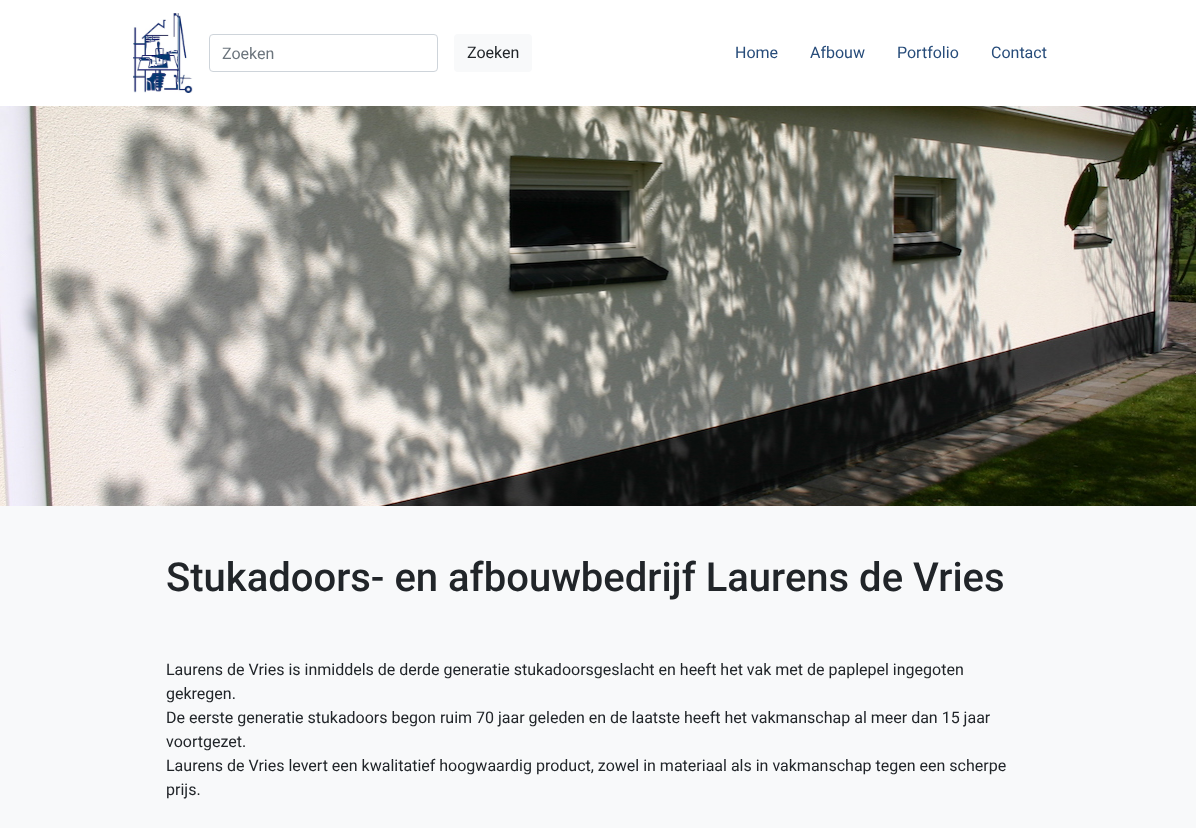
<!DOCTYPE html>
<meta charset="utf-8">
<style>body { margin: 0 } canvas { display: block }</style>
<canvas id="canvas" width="1196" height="828"></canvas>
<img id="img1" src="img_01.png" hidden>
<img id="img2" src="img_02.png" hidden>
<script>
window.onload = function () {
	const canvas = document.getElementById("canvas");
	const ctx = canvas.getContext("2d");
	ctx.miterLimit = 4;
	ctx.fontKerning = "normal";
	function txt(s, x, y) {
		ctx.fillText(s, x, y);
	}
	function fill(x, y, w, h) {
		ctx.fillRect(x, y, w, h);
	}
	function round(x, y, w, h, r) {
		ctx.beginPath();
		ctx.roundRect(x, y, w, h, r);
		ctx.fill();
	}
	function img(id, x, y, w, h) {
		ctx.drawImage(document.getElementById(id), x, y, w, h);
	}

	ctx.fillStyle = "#F8F9FA";
	fill(0, 0, 1196, 828);
	ctx.fillStyle = "#FFFFFF";
	fill(0, 0, 1196, 106);
	img("img1", 133, 13, 60, 80);
	ctx.beginPath();
	ctx.roundRect(209.5, 34.5, 228, 37, 3.5);
	ctx.strokeStyle = "#CED4DA";
	ctx.stroke();
	ctx.fillStyle = "#F8F9FA";
	round(454, 34, 78, 38, 4);
	img("img2", 0, 106, 1196, 400);
	ctx.font = "16px Roboto";
	ctx.fillStyle = "#6C757D";
	txt("Zoeken", 222, 59);
	ctx.fillStyle = "#212529";
	txt("Zoeken", 467, 58);
	ctx.fillStyle = "#274C7A";
	txt("Home", 735, 58);
	txt("Afbouw", 810, 58);
	txt("Portfolio", 897, 58);
	txt("Contact", 991, 58);
	ctx.font = "500 40px Roboto";
	ctx.fillStyle = "#212529";
	txt("Stukadoors- en afbouwbedrijf Laurens de Vries", 166, 591);
	ctx.font = "16px Roboto";
	txt("Laurens de Vries is inmiddels de derde generatie stukadoorsgeslacht en heeft het vak met de paplepel ingegoten", 166, 675);
	txt("gekregen.", 166, 699);
	txt("De eerste generatie stukadoors begon ruim 70 jaar geleden en de laatste heeft het vakmanschap al meer dan 15 jaar", 166, 723);
	txt("voortgezet.", 166, 747);
	txt("Laurens de Vries levert een kwalitatief hoogwaardig product, zowel in materiaal als in vakmanschap tegen een scherpe", 166, 771);
	txt("prijs.", 166, 795);
};
</script>
